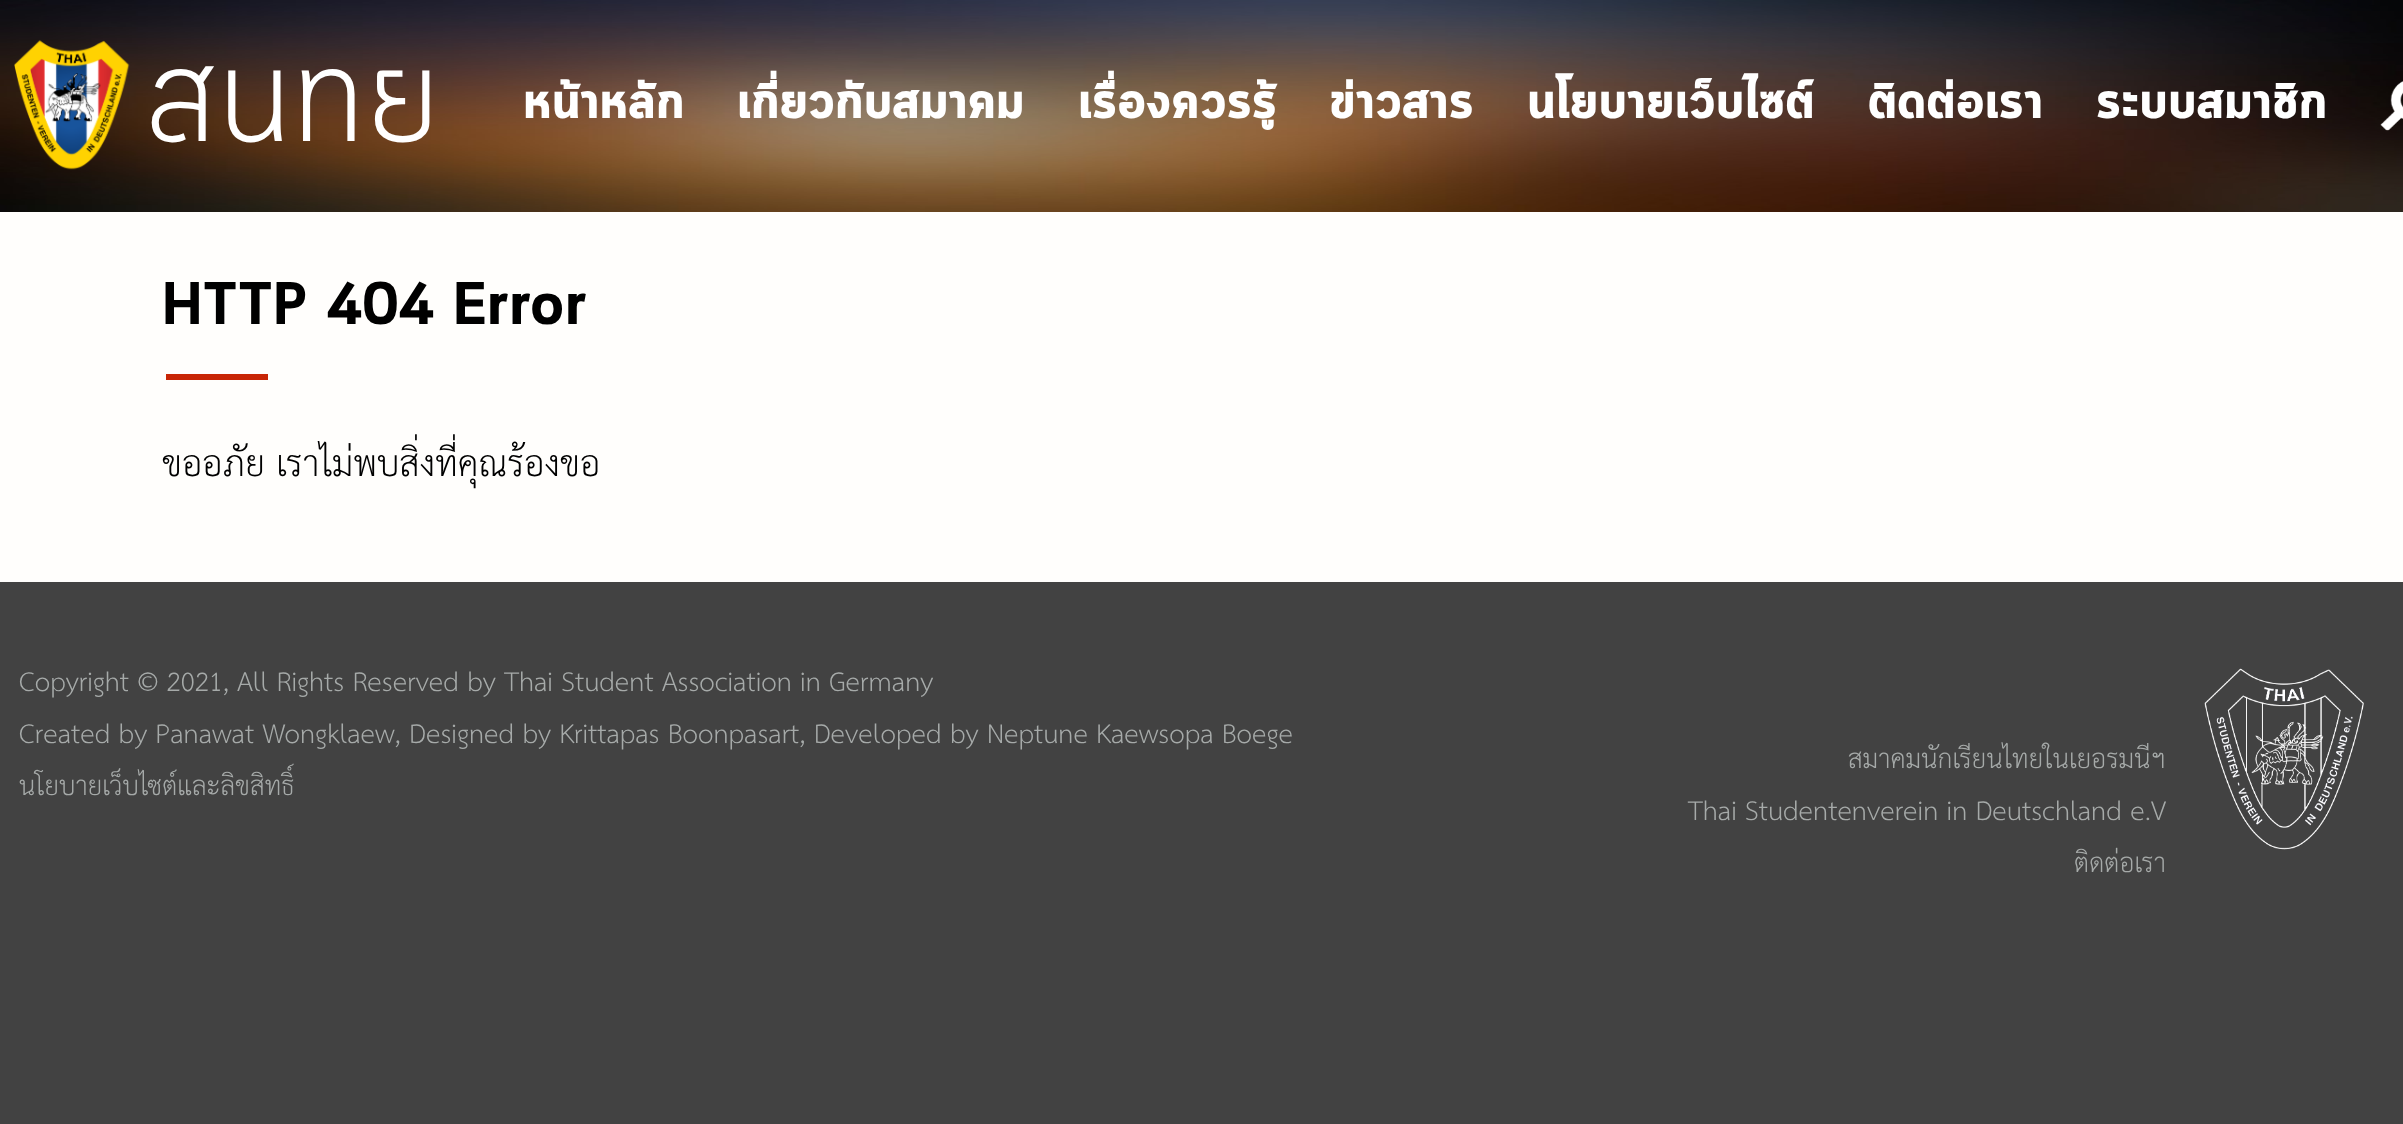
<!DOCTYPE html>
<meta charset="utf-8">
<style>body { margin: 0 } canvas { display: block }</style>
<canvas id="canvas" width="2403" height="1124"></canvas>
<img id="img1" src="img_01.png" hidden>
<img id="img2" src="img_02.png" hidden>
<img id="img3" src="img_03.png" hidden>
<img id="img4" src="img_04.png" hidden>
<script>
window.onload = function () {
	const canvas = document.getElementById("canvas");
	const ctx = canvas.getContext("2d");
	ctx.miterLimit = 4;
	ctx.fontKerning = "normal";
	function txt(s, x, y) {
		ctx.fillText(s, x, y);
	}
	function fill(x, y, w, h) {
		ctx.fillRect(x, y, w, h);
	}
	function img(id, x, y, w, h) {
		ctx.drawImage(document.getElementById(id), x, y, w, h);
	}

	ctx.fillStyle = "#424242";
	fill(0, 0, 2403, 1124);
	img("img1", 0, 0, 2403, 212);
	img("img2", 14, 40, 116, 130);
	img("img3", 2380, 81, 23, 50);
	ctx.fillStyle = "#FFFEFC";
	fill(0, 212, 2403, 370);
	ctx.fillStyle = "#C82506";
	fill(166, 374, 102, 6);
	img("img4", 2204, 668, 160, 182);
	ctx.font = "300 141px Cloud";
	ctx.fillStyle = "#FFFFFF";
	txt("สนทย", 144, 141);
	ctx.font = "bold 52.75px Cloud";
	txt("หน้าหลัก", 523, 118);
	txt("เกี่ยวกับสมาคม", 737, 118);
	txt("เรื่องควรรู้", 1078, 118);
	txt("ข่าวสาร", 1329, 118);
	txt("นโยบายเว็บไซต์", 1527, 118);
	txt("ติดต่อเรา", 1868, 118);
	txt("ระบบสมาชิก", 2096, 118);
	ctx.font = "bold 60px Cloud";
	ctx.fillStyle = "#000000";
	txt("HTTP 404 Error", 162, 324);
	ctx.font = "52.75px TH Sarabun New";
	txt("ขออภัย เราไม่พบสิ่งที่คุณร้องขอ", 162, 476);
	ctx.font = "38.75px TH Sarabun New";
	ctx.fillStyle = "#A6AAA9";
	txt("Copyright © 2021, All Rights Reserved by Thai Student Association in Germany", 19, 691);
	txt("Created by Panawat Wongklaew, Designed by Krittapas Boonpasart, Developed by Neptune Kaewsopa Boege", 19, 743);
	txt("นโยบายเว็บไซต์และลิขสิทธิ์", 19, 795);
	txt("สมาคมนักเรียนไทยในเยอรมนีฯ", 1848, 768);
	txt("Thai Studentenverein in Deutschland e.V", 1688, 820);
	txt("ติดต่อเรา", 2074, 872);
};
</script>
